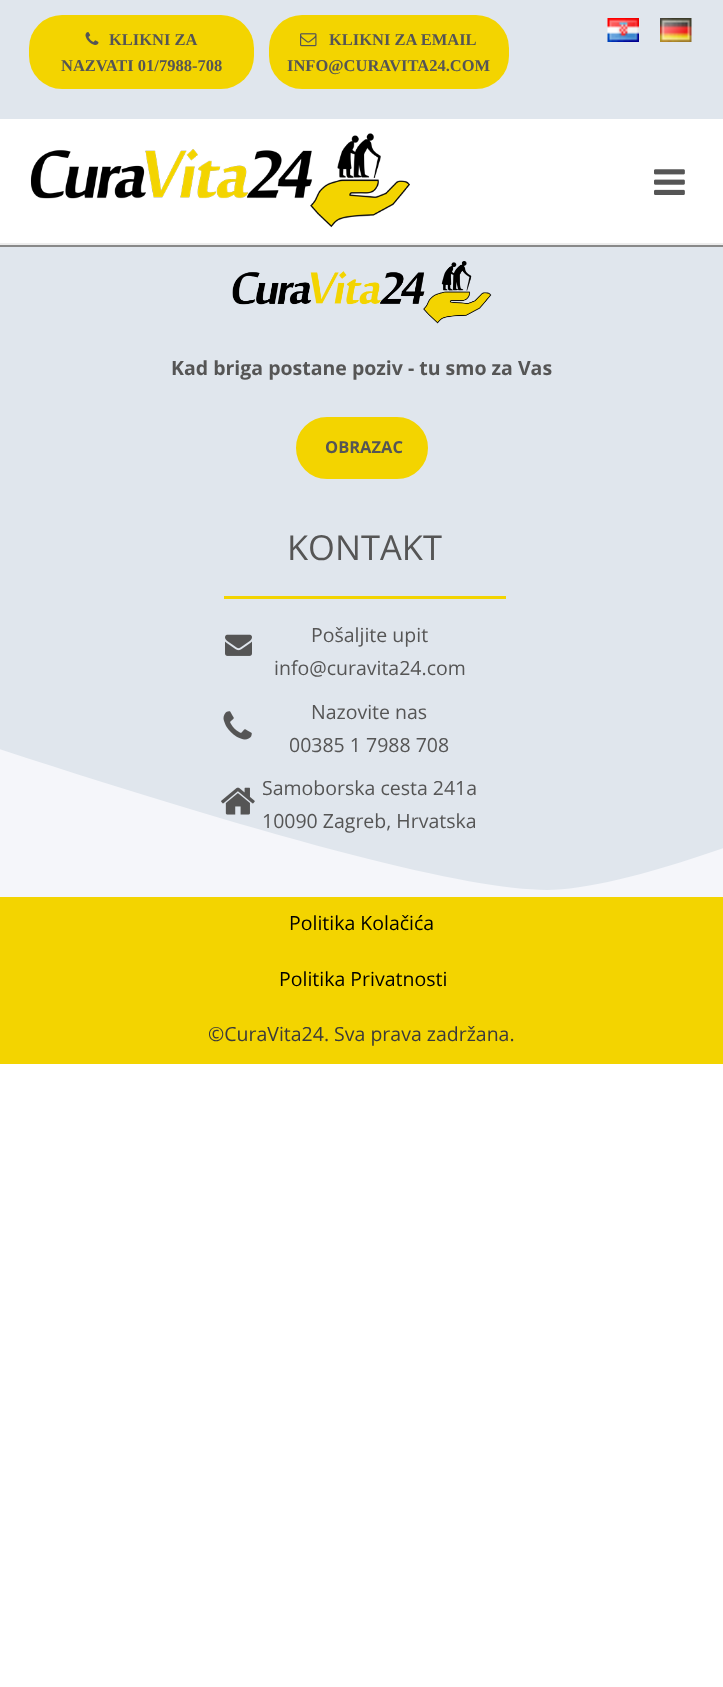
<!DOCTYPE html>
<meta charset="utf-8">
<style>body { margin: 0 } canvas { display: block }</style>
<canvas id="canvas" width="723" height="1687"></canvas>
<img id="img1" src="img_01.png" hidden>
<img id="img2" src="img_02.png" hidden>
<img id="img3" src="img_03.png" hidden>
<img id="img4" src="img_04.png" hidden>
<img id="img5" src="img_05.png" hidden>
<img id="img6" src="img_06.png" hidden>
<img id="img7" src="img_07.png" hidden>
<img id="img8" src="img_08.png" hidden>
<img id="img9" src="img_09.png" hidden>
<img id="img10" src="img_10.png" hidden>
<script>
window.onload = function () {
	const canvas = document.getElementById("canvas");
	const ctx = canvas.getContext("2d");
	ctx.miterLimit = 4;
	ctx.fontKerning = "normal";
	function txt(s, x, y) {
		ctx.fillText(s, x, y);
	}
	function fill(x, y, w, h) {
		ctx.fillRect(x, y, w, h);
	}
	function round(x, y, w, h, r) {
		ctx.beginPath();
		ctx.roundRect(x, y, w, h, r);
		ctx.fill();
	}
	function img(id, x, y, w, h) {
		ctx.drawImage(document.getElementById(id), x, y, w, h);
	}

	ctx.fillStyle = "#FFFFFF";
	fill(0, 0, 723, 1687);
	ctx.fillStyle = "#E0E6ED";
	fill(0, 0, 723, 119);
	img("img1", 607, 18, 32, 24);
	img("img2", 660, 18, 32, 24);
	ctx.fillStyle = "#F3D400";
	round(29, 15, 225, 74, 33);
	img("img3", 85, 32, 14, 13);
	round(269, 15, 240, 74, 33);
	img("img4", 300, 33, 17, 14);
	ctx.fillStyle = "#EDEDED";
	fill(0, 243, 723, 2);
	img("img5", 30, 133, 380, 95);
	img("img6", 654, 169, 31, 26);
	ctx.fillStyle = "#E0E6ED";
	fill(0, 247, 723, 643);
	ctx.fillStyle = "#898989";
	fill(0, 245, 723, 2);
	img("img7", 232, 261, 260, 63);
	ctx.fillStyle = "#F3D400";
	ctx.beginPath();
	ctx.roundRect(297, 418, 130, 60, 30);
	ctx.fill();
	ctx.strokeStyle = "#F3D400";
	ctx.lineWidth = 2;
	ctx.stroke();
	fill(224, 596, 282, 3);
	img("img8", 225, 634, 27, 22);
	img("img9", 223, 711, 29, 29);
	ctx.fillStyle = "#F5F6FA";
	ctx.beginPath();
	ctx.moveTo(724, 848);
	ctx.bezierCurveTo(643, 876, 584, 890, 547, 890);
	ctx.bezierCurveTo(469, 890, 287, 843, -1, 749);
	ctx.lineTo(-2, 899);
	ctx.lineTo(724, 899);
	ctx.closePath();
	ctx.fill();
	img("img10", 221, 787, 34, 28);
	ctx.fillStyle = "#F3D400";
	fill(0, 897, 723, 167);
	ctx.font = "bold 16.5px Liberation Serif";
	ctx.fillStyle = "#555555";
	txt("KLIKNI ZA", 109, 45);
	txt("NAZVATI 01/7988-708", 61, 71);
	txt("KLIKNI ZA EMAIL", 329, 45);
	txt("INFO@CURAVITA24.COM", 287, 71);
	ctx.font = "bold 19.5px Open Sans";
	txt("Kad briga postane poziv - tu smo za Vas", 171, 375);
	ctx.font = "bold 16.5px Open Sans";
	txt("OBRAZAC", 325, 453);
	ctx.font = "34.5px Open Sans";
	txt("KONTAKT", 287, 560);
	ctx.font = "19.5px Open Sans";
	txt("Pošaljite upit", 311, 642);
	txt("info@curavita24.com", 274, 675);
	txt("Nazovite nas", 311, 719);
	txt("00385 1 7988 708", 289, 752);
	txt("Samoborska cesta 241a", 262, 795);
	txt("10090 Zagreb, Hrvatska", 262, 828);
	ctx.fillStyle = "#000000";
	txt("Politika Kolačića", 289, 930);
	txt("Politika Privatnosti", 279, 986);
	ctx.fillStyle = "#3B3A3A";
	txt("©CuraVita24. Sva prava zadržana.", 208, 1041);
};
</script>
